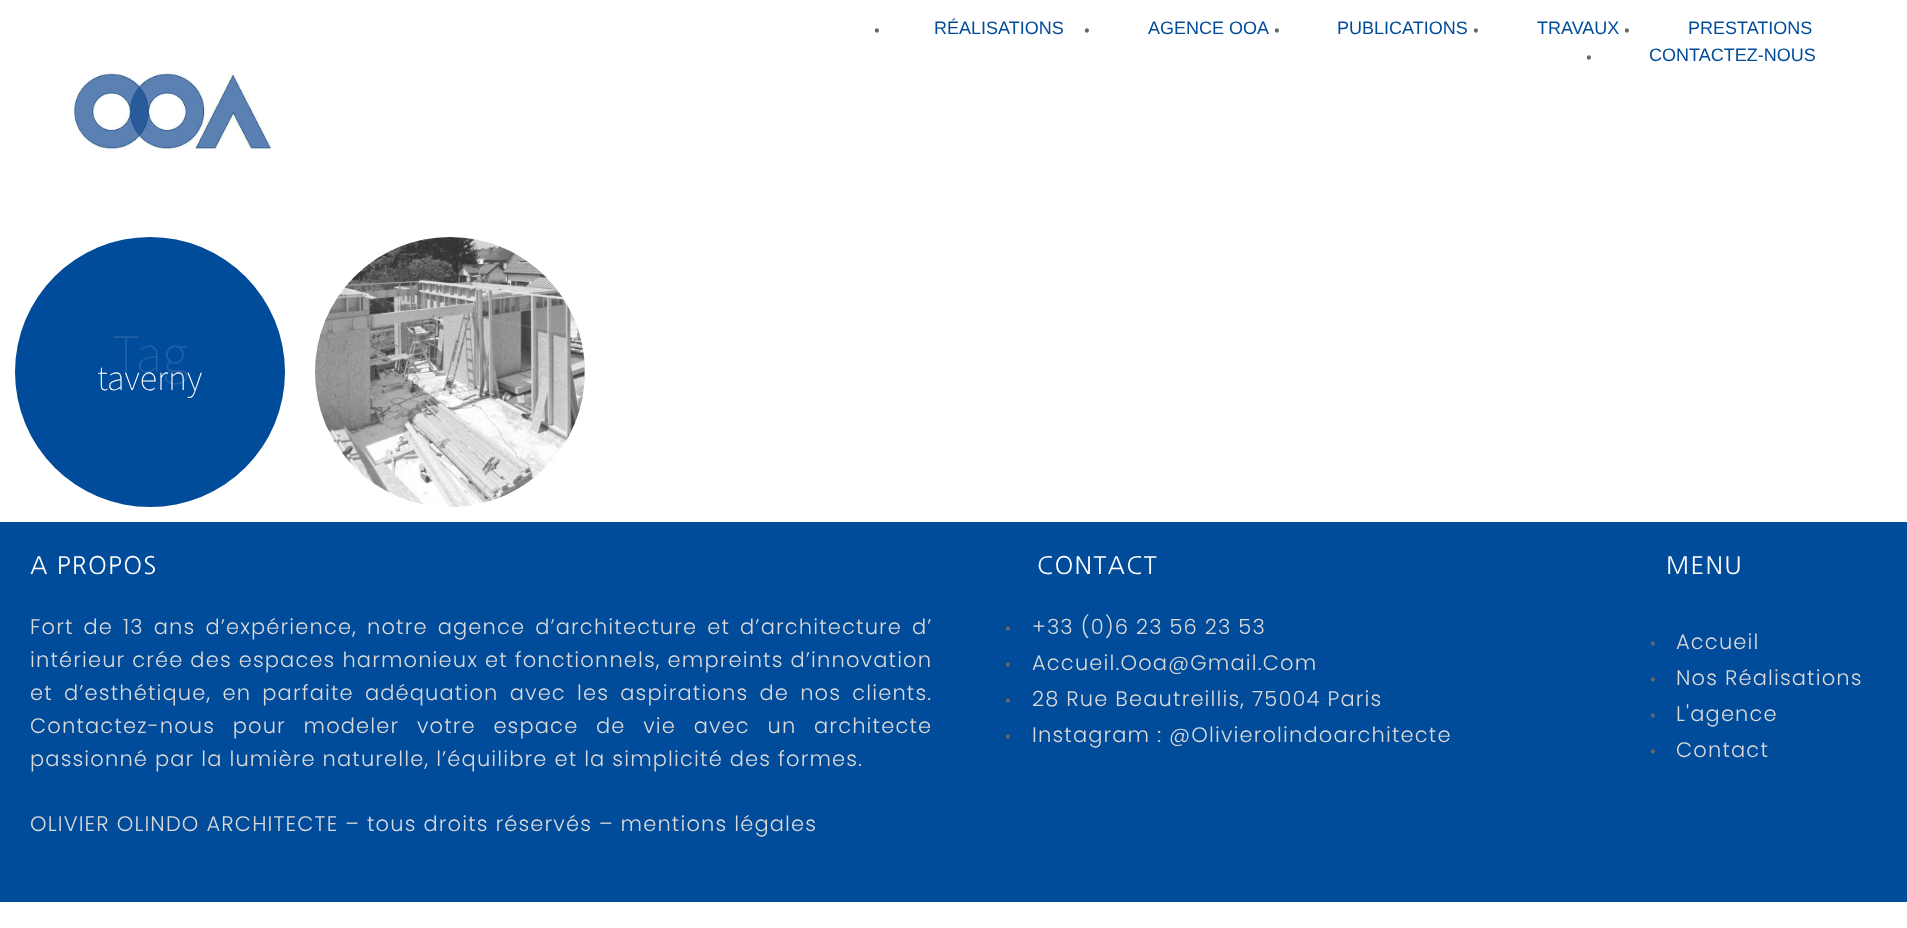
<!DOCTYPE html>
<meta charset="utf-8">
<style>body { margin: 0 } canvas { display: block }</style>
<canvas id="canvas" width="1907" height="928"></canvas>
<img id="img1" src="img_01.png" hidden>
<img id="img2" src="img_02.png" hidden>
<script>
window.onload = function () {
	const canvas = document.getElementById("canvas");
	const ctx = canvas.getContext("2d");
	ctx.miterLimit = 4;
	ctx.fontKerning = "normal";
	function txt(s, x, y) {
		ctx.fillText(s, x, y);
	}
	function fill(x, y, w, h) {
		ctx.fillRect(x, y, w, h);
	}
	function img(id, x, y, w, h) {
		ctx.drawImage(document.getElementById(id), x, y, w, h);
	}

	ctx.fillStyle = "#FFFFFF";
	fill(0, 0, 1907, 928);
	img("img1", 73, 72, 199, 78);
	ctx.fillStyle = "#004B9A";
	ctx.beginPath();
	ctx.arc(150, 372, 135, 0, Math.PI * 2);
	ctx.fill();
	img("img2", 315, 237, 270, 270);
	fill(0, 522, 1907, 380);
	ctx.font = "200 21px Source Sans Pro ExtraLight";
	ctx.fillStyle = "#666666";
	txt("•", 874, 36);
	ctx.font = "18px Liberation Sans";
	ctx.fillStyle = "#004B9A";
	txt("RÉALISATIONS", 934, 34);
	ctx.font = "200 21px Source Sans Pro ExtraLight";
	ctx.fillStyle = "#666666";
	txt("•", 1084, 36);
	ctx.font = "18px Liberation Sans";
	ctx.fillStyle = "#004B9A";
	txt("AGENCE OOA", 1148, 34);
	ctx.font = "200 21px Source Sans Pro ExtraLight";
	ctx.fillStyle = "#666666";
	txt("•", 1274, 36);
	ctx.font = "18px Liberation Sans";
	ctx.fillStyle = "#004B9A";
	txt("PUBLICATIONS", 1337, 34);
	ctx.font = "200 21px Source Sans Pro ExtraLight";
	ctx.fillStyle = "#666666";
	txt("•", 1473, 36);
	ctx.font = "18px Liberation Sans";
	ctx.fillStyle = "#004B9A";
	txt("TRAVAUX", 1537, 34);
	ctx.font = "200 21px Source Sans Pro ExtraLight";
	ctx.fillStyle = "#666666";
	txt("•", 1624, 36);
	ctx.font = "18px Liberation Sans";
	ctx.fillStyle = "#004B9A";
	txt("PRESTATIONS", 1688, 34);
	ctx.font = "200 21px Source Sans Pro ExtraLight";
	ctx.fillStyle = "#666666";
	txt("•", 1586, 63);
	ctx.font = "18px Liberation Sans";
	ctx.fillStyle = "#004B9A";
	txt("CONTACTEZ-NOUS", 1649, 61);
	ctx.font = "200 54px Source Sans Pro ExtraLight";
	ctx.fillStyle = "#2162A7";
	txt("Tag", 112, 372);
	ctx.font = "200 36px Source Sans Pro ExtraLight";
	ctx.fillStyle = "#FFFFFF";
	txt("taverny", 97, 390);
	ctx.letterSpacing = "1.25px";
	ctx.font = "24px NanumGothic";
	txt("A PROPOS", 30, 574);
	ctx.letterSpacing = "1.15px";
	ctx.wordSpacing = "3.1px";
	ctx.font = "300 21px Poppins";
	ctx.fillStyle = "#DADADA";
	txt("Fort de 13 ans d’expérience, notre agence d’architecture et d’architecture d’", 30, 634);
	ctx.wordSpacing = "0px";
	txt("intérieur crée des espaces harmonieux et fonctionnels, empreints d’innovation", 30, 667);
	ctx.wordSpacing = "4.25px";
	txt("et d’esthétique, en parfaite adéquation avec les aspirations de nos clients.", 30, 700);
	ctx.wordSpacing = "10.75px";
	txt("Contactez-nous pour modeler votre espace de vie avec un architecte", 30, 733);
	ctx.wordSpacing = "0px";
	txt("passionné par la lumière naturelle, l’équilibre et la simplicité des formes.", 30, 766);
	txt("OLIVIER OLINDO ARCHITECTE – tous droits réservés – mentions légales", 30, 831);
	ctx.letterSpacing = "1.25px";
	ctx.font = "24px NanumGothic";
	ctx.fillStyle = "#FFFFFF";
	txt("CONTACT", 1037, 574);
	ctx.letterSpacing = "0px";
	ctx.font = "200 21px Source Sans Pro ExtraLight";
	ctx.fillStyle = "#666666";
	txt("•", 1005, 634);
	ctx.letterSpacing = "1.15px";
	ctx.font = "300 21px Poppins";
	ctx.fillStyle = "#DADADA";
	txt("+33 (0)6 23 56 23 53", 1032, 634);
	ctx.letterSpacing = "0px";
	ctx.font = "200 21px Source Sans Pro ExtraLight";
	ctx.fillStyle = "#666666";
	txt("•", 1005, 670);
	ctx.letterSpacing = "1.15px";
	ctx.font = "300 21px Poppins";
	ctx.fillStyle = "#DADADA";
	txt("Accueil.Ooa@Gmail.Com", 1032, 670);
	ctx.letterSpacing = "0px";
	ctx.font = "200 21px Source Sans Pro ExtraLight";
	ctx.fillStyle = "#666666";
	txt("•", 1005, 706);
	ctx.letterSpacing = "1.15px";
	ctx.font = "300 21px Poppins";
	ctx.fillStyle = "#DADADA";
	txt("28 Rue Beautreillis, 75004 Paris", 1032, 706);
	ctx.letterSpacing = "0px";
	ctx.font = "200 21px Source Sans Pro ExtraLight";
	ctx.fillStyle = "#666666";
	txt("•", 1005, 742);
	ctx.letterSpacing = "1.15px";
	ctx.font = "300 21px Poppins";
	ctx.fillStyle = "#DADADA";
	txt("Instagram : @Olivierolindoarchitecte", 1032, 742);
	ctx.letterSpacing = "1.25px";
	ctx.font = "24px NanumGothic";
	ctx.fillStyle = "#FFFFFF";
	txt("MENU", 1666, 574);
	ctx.letterSpacing = "0px";
	ctx.font = "200 21px Source Sans Pro ExtraLight";
	ctx.fillStyle = "#666666";
	txt("•", 1650, 649);
	ctx.letterSpacing = "1.15px";
	ctx.font = "300 21px Poppins";
	ctx.fillStyle = "#DADADA";
	txt("Accueil", 1676, 649);
	ctx.letterSpacing = "0px";
	ctx.font = "200 21px Source Sans Pro ExtraLight";
	ctx.fillStyle = "#666666";
	txt("•", 1650, 685);
	ctx.letterSpacing = "1.15px";
	ctx.font = "300 21px Poppins";
	ctx.fillStyle = "#DADADA";
	txt("Nos Réalisations", 1676, 685);
	ctx.letterSpacing = "0px";
	ctx.font = "200 21px Source Sans Pro ExtraLight";
	ctx.fillStyle = "#666666";
	txt("•", 1650, 721);
	ctx.letterSpacing = "1.15px";
	ctx.font = "300 21px Poppins";
	ctx.fillStyle = "#DADADA";
	txt("L'agence", 1676, 721);
	ctx.letterSpacing = "0px";
	ctx.font = "200 21px Source Sans Pro ExtraLight";
	ctx.fillStyle = "#666666";
	txt("•", 1650, 757);
	ctx.letterSpacing = "1.15px";
	ctx.font = "300 21px Poppins";
	ctx.fillStyle = "#DADADA";
	txt("Contact", 1676, 757);
};
</script>
